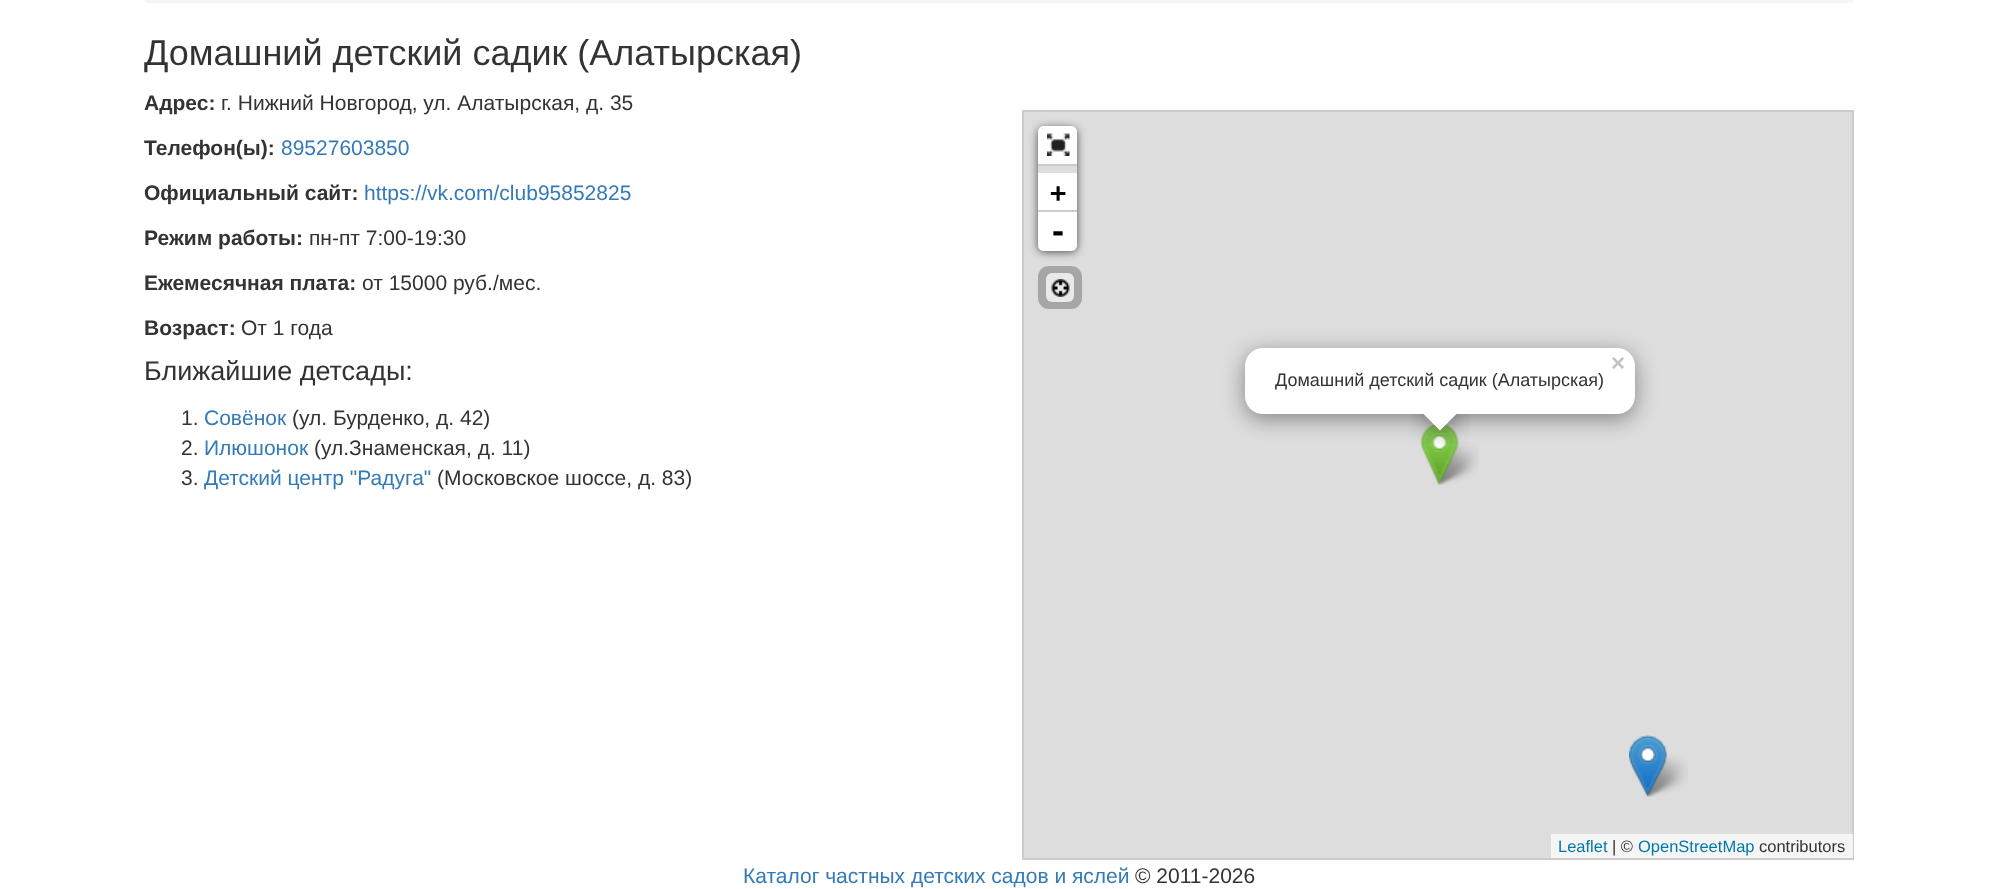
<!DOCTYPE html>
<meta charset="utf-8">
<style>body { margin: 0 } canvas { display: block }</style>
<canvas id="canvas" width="1998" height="889"></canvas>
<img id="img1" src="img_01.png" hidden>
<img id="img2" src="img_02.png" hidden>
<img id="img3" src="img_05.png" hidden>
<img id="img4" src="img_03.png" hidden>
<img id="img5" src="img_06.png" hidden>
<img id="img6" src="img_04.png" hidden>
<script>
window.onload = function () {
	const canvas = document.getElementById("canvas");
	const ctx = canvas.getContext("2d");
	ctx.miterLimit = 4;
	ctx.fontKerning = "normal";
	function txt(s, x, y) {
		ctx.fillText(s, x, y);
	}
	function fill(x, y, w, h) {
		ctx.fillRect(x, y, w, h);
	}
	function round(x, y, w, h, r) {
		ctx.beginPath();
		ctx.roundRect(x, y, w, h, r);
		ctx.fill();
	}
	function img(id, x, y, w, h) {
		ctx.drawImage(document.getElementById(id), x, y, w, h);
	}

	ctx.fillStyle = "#FFFFFF";
	fill(0, 0, 1998, 889);
	ctx.fillStyle = "#F5F5F5";
	round(144, -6, 1710, 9, 6);
	ctx.fillStyle = "#DDDDDD";
	ctx.beginPath();
	ctx.rect(1023, 111, 830, 748);
	ctx.fill();
	ctx.strokeStyle = "#CCCCCC";
	ctx.lineWidth = 2;
	ctx.stroke();
	ctx.save();
	ctx.beginPath();
	ctx.moveTo(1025, 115);
	ctx.lineTo(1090, 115);
	ctx.lineTo(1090, 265);
	ctx.lineTo(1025, 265);
	ctx.closePath();
	ctx.moveTo(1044, 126);
	ctx.lineTo(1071, 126);
	ctx.bezierCurveTo(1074.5, 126, 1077, 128.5, 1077, 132);
	ctx.lineTo(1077, 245);
	ctx.bezierCurveTo(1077, 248.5, 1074.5, 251, 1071, 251);
	ctx.lineTo(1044, 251);
	ctx.bezierCurveTo(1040.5, 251, 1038, 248.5, 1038, 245);
	ctx.lineTo(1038, 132);
	ctx.bezierCurveTo(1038, 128.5, 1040.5, 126, 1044, 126);
	ctx.closePath();
	ctx.clip("evenodd");
	ctx.fillStyle = "rgba(0, 0, 0, 0.65)";
	ctx.filter = "blur(4px)";
	ctx.beginPath();
	ctx.roundRect(1038, 128, 39, 124, 6);
	ctx.fill();
	ctx.filter = "none";
	ctx.restore();
	ctx.fillStyle = "#FFFFFF";
	ctx.beginPath();
	ctx.roundRect(1038, 126, 39, 39, [6, 6, 0, 0]);
	ctx.fill();
	img("img1", 1047, 133, 23, 23);
	ctx.fillStyle = "#CCCCCC";
	fill(1038, 164, 39, 2);
	ctx.fillStyle = "#FFFFFF";
	fill(1038, 173, 39, 37);
	ctx.fillStyle = "#CCCCCC";
	fill(1038, 210, 39, 2);
	ctx.fillStyle = "#FFFFFF";
	ctx.beginPath();
	ctx.roundRect(1038, 212, 39, 39, [0, 0, 6, 6]);
	ctx.fill();
	ctx.fillStyle = "#A6A6A6";
	round(1038, 266, 44, 43, 11);
	ctx.fillStyle = "#E9E9E9";
	round(1046, 273, 28, 29, 6);
	img("img2", 1051, 279, 19, 18);
	ctx.fillStyle = "rgba(255, 255, 255, 0.7)";
	fill(1551, 834, 302, 24);
	img("img3", 1433, 442, 46, 43);
	img("img4", 1420, 424, 39, 61);
	ctx.fillStyle = "rgba(0, 0, 0, 0.4)";
	ctx.filter = "blur(10.5px)";
	ctx.beginPath();
	ctx.roundRect(1245, 353, 390, 66, 18);
	ctx.fill();
	ctx.filter = "none";
	ctx.fillStyle = "#FFFFFF";
	round(1245, 348, 390, 66, 18);
	ctx.save();
	ctx.beginPath();
	ctx.rect(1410, 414, 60, 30);
	ctx.clip();
	ctx.fillStyle = "rgba(0, 0, 0, 0.4)";
	ctx.filter = "blur(10.5px)";
	ctx.beginPath();
	ctx.rect(1428, 404, 26, 25);
	ctx.fill();
	ctx.filter = "none";
	ctx.restore();
	ctx.save();
	ctx.beginPath();
	ctx.rect(1410, 414, 60, 30);
	ctx.clip();
	ctx.beginPath();
	ctx.moveTo(1440, 394.5);
	ctx.lineTo(1458, 412.5);
	ctx.lineTo(1440, 430.5);
	ctx.lineTo(1422, 412.5);
	ctx.closePath();
	ctx.fill();
	ctx.restore();
	img("img5", 1642, 754, 46, 43);
	img("img6", 1629, 735, 38, 62);
	ctx.font = "36px Liberation Sans";
	ctx.fillStyle = "#333333";
	txt("Домашний детский садик (Алатырская)", 144, 65);
	ctx.font = "bold 21px Liberation Sans";
	txt("Адрес:", 144, 110);
	ctx.font = "21px Liberation Sans";
	txt("г. Нижний Новгород, ул. Алатырская, д. 35", 221, 110);
	ctx.font = "bold 21px Liberation Sans";
	txt("Телефон(ы):", 144, 155);
	ctx.font = "21px Liberation Sans";
	ctx.fillStyle = "#337AB7";
	txt("89527603850", 281, 155);
	ctx.font = "bold 21px Liberation Sans";
	ctx.fillStyle = "#333333";
	txt("Официальный сайт:", 144, 200);
	ctx.font = "21px Liberation Sans";
	ctx.fillStyle = "#337AB7";
	txt("https://vk.com/club95852825", 364, 200);
	ctx.font = "bold 21px Liberation Sans";
	ctx.fillStyle = "#333333";
	txt("Режим работы:", 144, 245);
	ctx.font = "21px Liberation Sans";
	txt("пн-пт 7:00-19:30", 309, 245);
	ctx.font = "bold 21px Liberation Sans";
	txt("Ежемесячная плата:", 144, 290);
	ctx.font = "21px Liberation Sans";
	txt("от 15000 руб./мес.", 362, 290);
	ctx.font = "bold 21px Liberation Sans";
	txt("Возраст:", 144, 335);
	ctx.font = "21px Liberation Sans";
	txt("От 1 года", 241, 335);
	ctx.font = "27px Liberation Sans";
	txt("Ближайшие детсады:", 144, 380);
	ctx.font = "21px Liberation Sans";
	txt("1.", 181, 425);
	ctx.fillStyle = "#337AB7";
	txt("Совёнок", 204, 425);
	ctx.fillStyle = "#333333";
	txt("(ул. Бурденко, д. 42)", 292, 425);
	txt("2.", 181, 455);
	ctx.fillStyle = "#337AB7";
	txt("Илюшонок", 204, 455);
	ctx.fillStyle = "#333333";
	txt("(ул.Знаменская, д. 11)", 314, 455);
	txt("3.", 181, 485);
	ctx.fillStyle = "#337AB7";
	txt("Детский центр \"Радуга\"", 204, 485);
	ctx.fillStyle = "#333333";
	txt("(Московское шоссе, д. 83)", 437, 485);
	ctx.font = "bold 27px DejaVu Sans Mono";
	ctx.fillStyle = "#000000";
	txt("+", 1050, 202);
	ctx.font = "bold 30px DejaVu Sans Mono";
	txt("-", 1049, 242);
	ctx.font = "16.5px Liberation Sans";
	ctx.fillStyle = "#0078A8";
	txt("Leaflet", 1558, 852);
	ctx.fillStyle = "#333333";
	txt("| ©", 1612, 852);
	ctx.fillStyle = "#0078A8";
	txt("OpenStreetMap", 1638, 852);
	ctx.fillStyle = "#333333";
	txt("contributors", 1759, 852);
	ctx.font = "bold 24px Liberation Sans";
	ctx.fillStyle = "#C3C3C3";
	txt("×", 1611, 371);
	ctx.font = "18px Liberation Sans";
	ctx.fillStyle = "#333333";
	txt("Домашний детский садик (Алатырская)", 1275, 386);
	ctx.font = "21px Liberation Sans";
	ctx.fillStyle = "#337AB7";
	txt("Каталог частных детских садов и яслей", 743, 883);
	ctx.fillStyle = "#333333";
	txt("© 2011-2026", 1135, 883);
};
</script>
